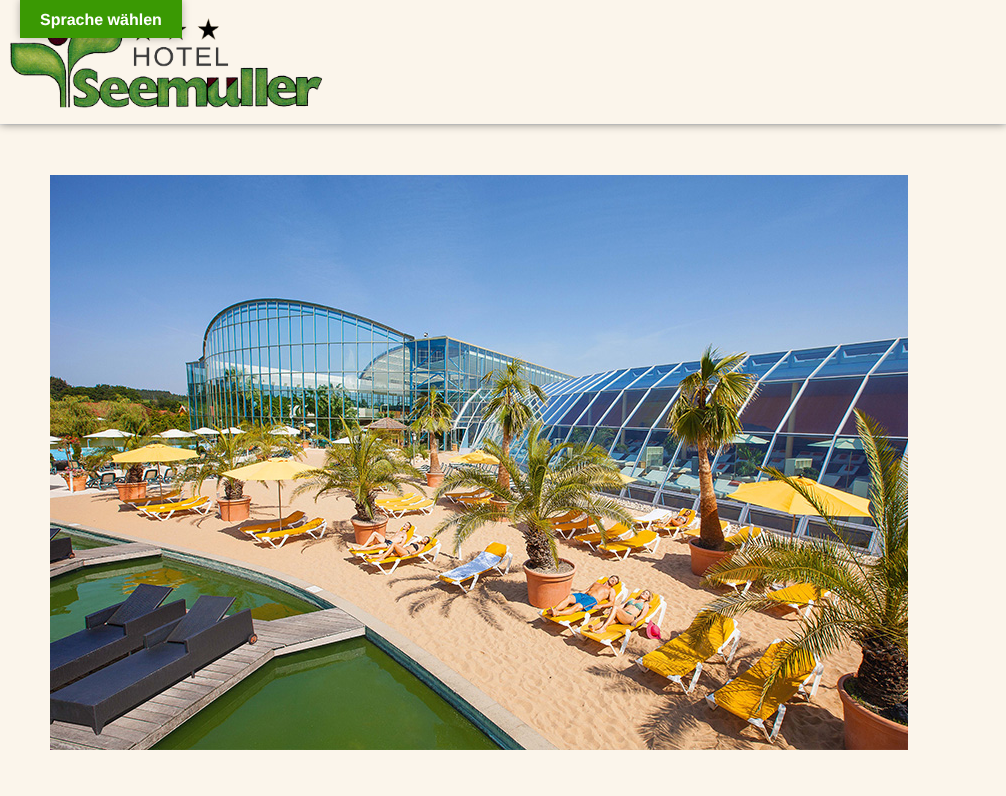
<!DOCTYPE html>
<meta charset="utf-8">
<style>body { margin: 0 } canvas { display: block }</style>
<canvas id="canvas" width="1006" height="796"></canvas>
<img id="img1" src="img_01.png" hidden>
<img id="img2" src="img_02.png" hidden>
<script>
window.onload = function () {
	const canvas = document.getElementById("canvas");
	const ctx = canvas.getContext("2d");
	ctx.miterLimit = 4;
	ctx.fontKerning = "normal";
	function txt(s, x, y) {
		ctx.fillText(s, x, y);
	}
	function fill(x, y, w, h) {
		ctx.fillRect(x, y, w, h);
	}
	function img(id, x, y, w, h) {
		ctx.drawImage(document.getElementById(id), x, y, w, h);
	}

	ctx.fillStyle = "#FBF5EB";
	fill(0, 0, 1006, 796);
	ctx.fillStyle = "#F1F1F1";
	fill(0, 124, 1006, 1);
	ctx.fillStyle = "rgba(0, 0, 0, 0.5)";
	ctx.filter = "blur(5px)";
	ctx.beginPath();
	ctx.rect(0, 0, 1006, 124);
	ctx.fill();
	ctx.filter = "none";
	ctx.fillStyle = "#FBF5EB";
	fill(0, 0, 1006, 124);
	img("img1", 10, 18, 313, 90);
	img("img2", 50, 175, 858, 575);
	ctx.fillStyle = "rgba(0, 0, 0, 0.3)";
	ctx.filter = "blur(4.5px)";
	ctx.beginPath();
	ctx.rect(20, 0, 162, 38);
	ctx.fill();
	ctx.filter = "none";
	ctx.fillStyle = "#3A9903";
	fill(20, 0, 162, 38);
	ctx.font = "bold 16px Liberation Sans";
	ctx.fillStyle = "#FFFFFF";
	txt("Sprache wählen", 40, 25);
};
</script>
